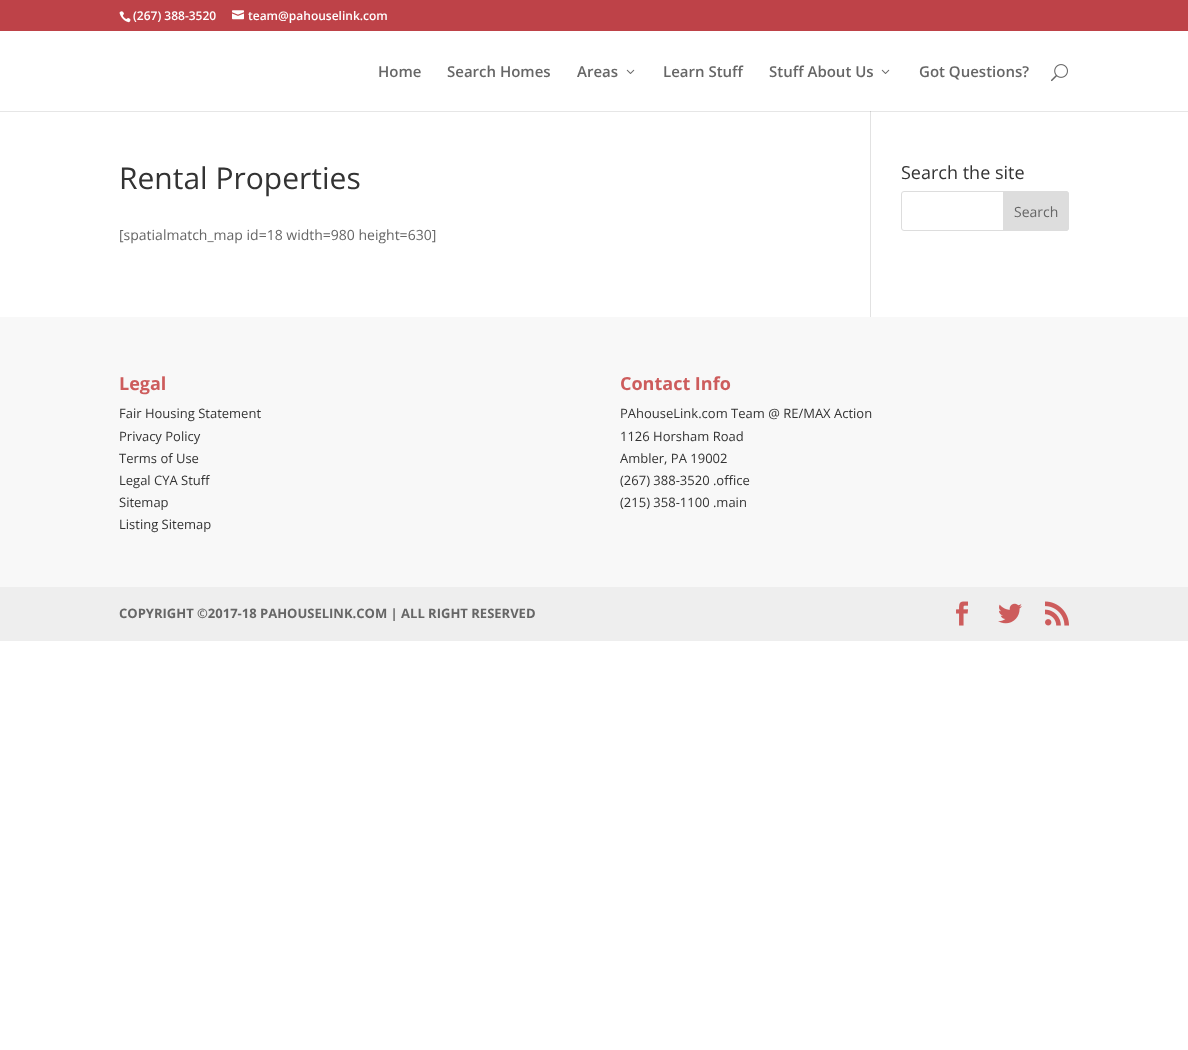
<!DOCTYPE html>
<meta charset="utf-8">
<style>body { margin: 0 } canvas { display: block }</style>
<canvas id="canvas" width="1188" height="1050"></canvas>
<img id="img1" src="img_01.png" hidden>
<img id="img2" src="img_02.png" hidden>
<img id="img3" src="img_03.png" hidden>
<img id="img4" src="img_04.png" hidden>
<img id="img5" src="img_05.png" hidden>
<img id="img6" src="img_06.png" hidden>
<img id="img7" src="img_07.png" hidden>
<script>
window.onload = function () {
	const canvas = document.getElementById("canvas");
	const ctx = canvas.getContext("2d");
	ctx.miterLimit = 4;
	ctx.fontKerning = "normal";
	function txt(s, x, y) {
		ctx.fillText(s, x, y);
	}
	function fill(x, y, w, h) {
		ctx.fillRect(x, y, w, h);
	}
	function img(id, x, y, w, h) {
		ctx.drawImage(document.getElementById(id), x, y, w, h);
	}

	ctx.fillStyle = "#FFFFFF";
	fill(0, 0, 1188, 1050);
	ctx.fillStyle = "#E6E6E6";
	fill(0, 111, 1188, 1);
	ctx.fillStyle = "#BE4248";
	fill(0, 0, 1188, 31);
	img("img1", 119, 11, 12, 12);
	img("img2", 232, 10, 12, 10);
	ctx.fillStyle = "#E2E2E2";
	fill(870, 105, 1, 212);
	ctx.fillStyle = "#FFFFFF";
	fill(870, 105, 1, 6);
	img("img3", 626, 69, 9, 5);
	img("img3", 881, 69, 9, 5);
	img("img4", 1051, 64, 17, 18);
	ctx.fillStyle = "#CBCBCB";
	fill(870, 111, 1, 1);
	ctx.beginPath();
	ctx.roundRect(901.5, 191.5, 167, 39, 2.5);
	ctx.strokeStyle = "#DDDDDD";
	ctx.stroke();
	ctx.fillStyle = "#DDDDDD";
	ctx.beginPath();
	ctx.roundRect(1003.5, 191.5, 65, 39, [0, 2.5, 2.5, 0]);
	ctx.fill();
	ctx.stroke();
	ctx.fillStyle = "#F8F8F8";
	fill(0, 317, 1188, 270);
	ctx.fillStyle = "#EEEEEE";
	fill(0, 587, 1188, 54);
	img("img5", 956, 601, 12, 25);
	img("img6", 998, 603, 24, 21);
	img("img7", 1045, 601, 24, 25);
	ctx.font = "600 12px Open Sans";
	ctx.fillStyle = "#FFFFFF";
	txt("(267) 388-3520", 133, 20);
	txt("team@pahouselink.com", 248, 20);
	ctx.font = "600 15px Open Sans";
	ctx.fillStyle = "#666666";
	txt("Home", 378, 77);
	txt("Search Homes", 447, 77);
	txt("Areas", 577, 77);
	txt("Learn Stuff", 663, 77);
	txt("Stuff About Us", 769, 77);
	txt("Got Questions?", 919, 77);
	ctx.font = "30px Open Sans";
	ctx.fillStyle = "#333333";
	txt("Rental Properties", 119, 189);
	ctx.font = "14px Open Sans";
	ctx.fillStyle = "#666666";
	txt("[spatialmatch_map id=18 width=980 height=630]", 119, 240);
	ctx.font = "18px Open Sans";
	ctx.fillStyle = "#333333";
	txt("Search the site", 901, 179);
	ctx.font = "14px Open Sans";
	ctx.fillStyle = "#666666";
	txt("Search", 1014, 217);
	ctx.font = "bold 18px Open Sans";
	ctx.fillStyle = "#CD5C5C";
	txt("Legal", 119, 390);
	ctx.font = "13px Open Sans";
	ctx.fillStyle = "#333333";
	txt("Fair Housing Statement", 119, 418);
	txt("Privacy Policy", 119, 441);
	txt("Terms of Use", 119, 463);
	txt("Legal CYA Stuff", 119, 485);
	txt("Sitemap", 119, 507);
	txt("Listing Sitemap", 119, 529);
	ctx.font = "bold 18px Open Sans";
	ctx.fillStyle = "#CD5C5C";
	txt("Contact Info", 620, 390);
	ctx.font = "13px Open Sans";
	ctx.fillStyle = "#333333";
	txt("PAhouseLink.com Team @ RE/MAX Action", 620, 418);
	txt("1126 Horsham Road", 620, 441);
	txt("Ambler, PA 19002", 620, 463);
	txt("(267) 388-3520 .office", 620, 485);
	txt("(215) 358-1100 .main", 620, 507);
	ctx.font = "bold 13px Open Sans";
	ctx.fillStyle = "#666666";
	txt("COPYRIGHT ©2017-18 PAHOUSELINK.COM | ALL RIGHT RESERVED", 119, 618);
};
</script>
